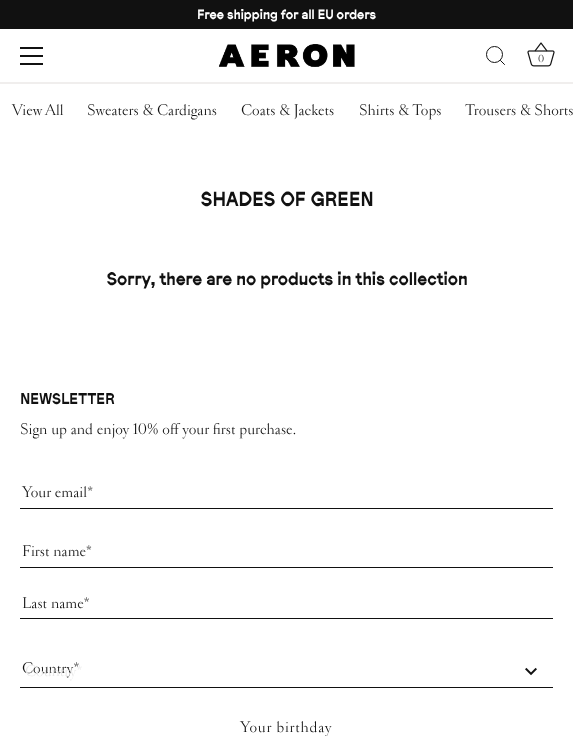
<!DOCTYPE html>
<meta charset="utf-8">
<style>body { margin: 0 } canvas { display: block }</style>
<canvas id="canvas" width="573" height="736"></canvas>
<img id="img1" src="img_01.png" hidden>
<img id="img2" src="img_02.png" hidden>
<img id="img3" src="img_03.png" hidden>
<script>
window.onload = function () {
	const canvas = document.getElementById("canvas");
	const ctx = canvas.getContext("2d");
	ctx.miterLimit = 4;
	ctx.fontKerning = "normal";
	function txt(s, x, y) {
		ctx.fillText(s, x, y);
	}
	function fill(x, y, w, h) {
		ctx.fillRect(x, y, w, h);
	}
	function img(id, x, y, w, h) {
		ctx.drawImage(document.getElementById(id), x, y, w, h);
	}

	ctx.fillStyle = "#FFFFFF";
	fill(0, 0, 573, 736);
	ctx.fillStyle = "#111111";
	fill(0, 0, 573, 29);
	fill(20, 47, 23, 2);
	fill(20, 55, 23, 2);
	fill(20, 63, 23, 2);
	img("img1", 218, 44, 137, 23);
	ctx.beginPath();
	ctx.arc(494.5, 54.5, 8, 0, Math.PI * 2);
	ctx.strokeStyle = "#111111";
	ctx.stroke();
	ctx.beginPath();
	ctx.moveTo(504.5, 64.5);
	ctx.lineTo(500.5, 60.5);
	ctx.lineCap = "round";
	ctx.lineJoin = "round";
	ctx.stroke();
	img("img2", 527, 42, 28, 25);
	ctx.fillStyle = "#F0EEED";
	fill(0, 82, 573, 2);
	ctx.fillStyle = "#111111";
	fill(20, 508, 533, 1);
	fill(20, 567, 533, 1);
	fill(20, 618, 533, 1);
	fill(20, 687, 533, 1);
	img("img3", 525, 667, 12, 9);
	ctx.font = "bold 13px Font";
	ctx.fillStyle = "#FFFFFF";
	txt("Free shipping for all EU orders", 197, 19);
	ctx.font = "10px Font";
	ctx.fillStyle = "#111111";
	txt("0", 538, 62);
	ctx.font = "15px Font";
	txt("View All", 12, 115);
	txt("Sweaters & Cardigans", 87, 115);
	txt("Coats & Jackets", 241, 115);
	txt("Shirts & Tops", 359, 115);
	txt("Trousers & Shorts", 465, 115);
	ctx.font = "bold 19.5px Font";
	txt("SHADES OF GREEN", 200, 206);
	ctx.font = "bold 17.6px Font";
	txt("Sorry, there are no products in this collection", 106, 285);
	ctx.font = "bold 15px Font";
	txt("NEWSLETTER", 20, 404);
	ctx.font = "15px Font";
	txt("Sign up and enjoy 10% off your first purchase.", 20, 434);
	txt("Your email*", 22, 497);
	txt("First name*", 22, 556);
	txt("Last name*", 22, 608);
	txt("Country*", 22, 673);
	ctx.fillStyle = "#E8E8E8";
	txt("Country*", 25, 676);
	ctx.letterSpacing = "0.75px";
	ctx.fillStyle = "#111111";
	txt("Your birthday", 240, 732);
};
</script>
